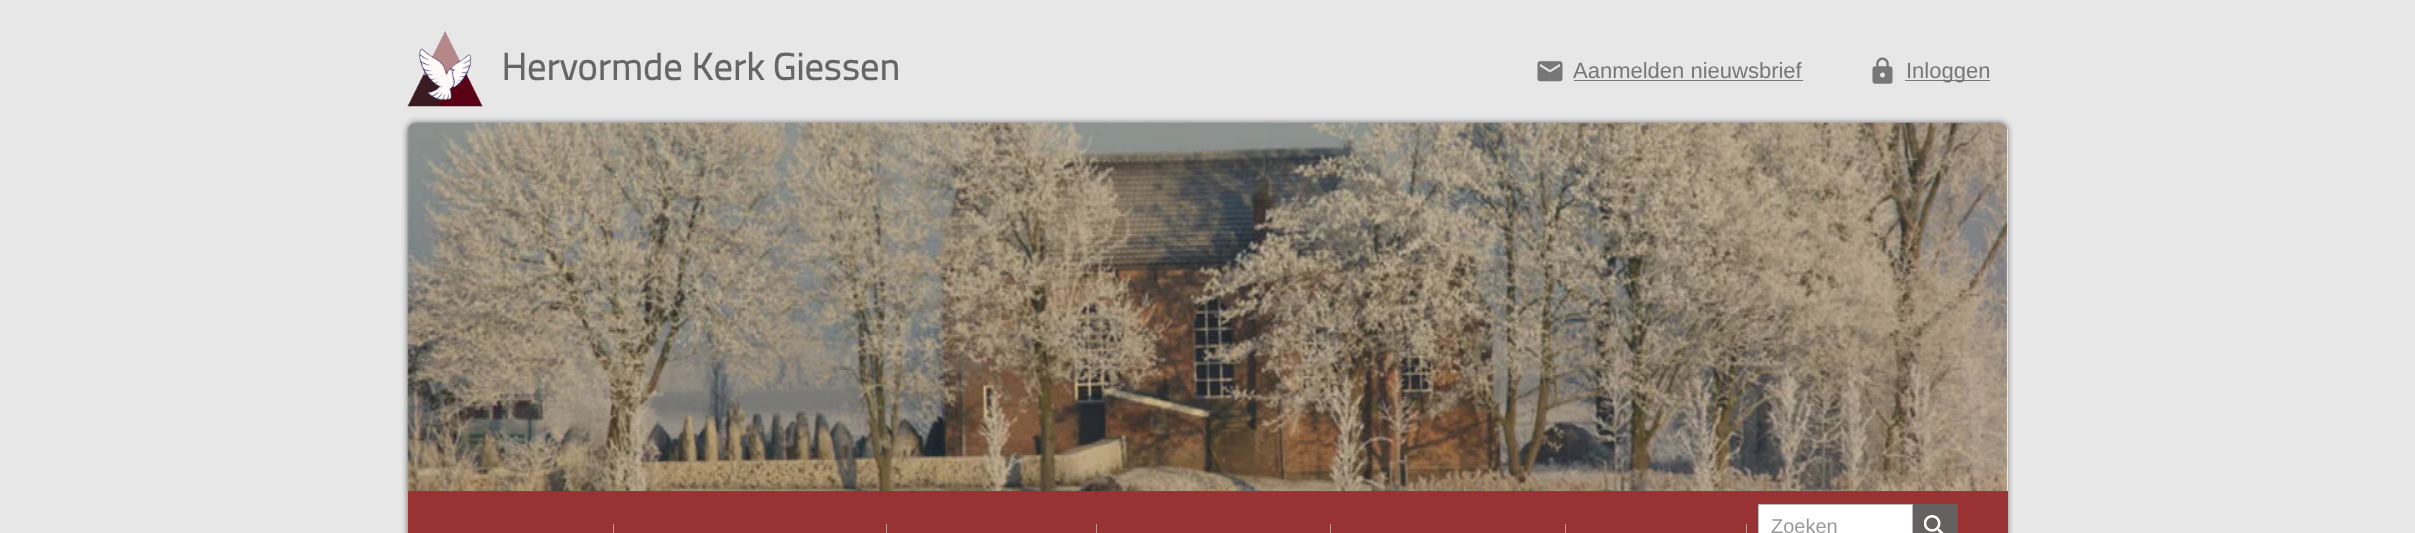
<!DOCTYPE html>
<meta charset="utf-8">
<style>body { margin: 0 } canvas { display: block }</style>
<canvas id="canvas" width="2415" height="533"></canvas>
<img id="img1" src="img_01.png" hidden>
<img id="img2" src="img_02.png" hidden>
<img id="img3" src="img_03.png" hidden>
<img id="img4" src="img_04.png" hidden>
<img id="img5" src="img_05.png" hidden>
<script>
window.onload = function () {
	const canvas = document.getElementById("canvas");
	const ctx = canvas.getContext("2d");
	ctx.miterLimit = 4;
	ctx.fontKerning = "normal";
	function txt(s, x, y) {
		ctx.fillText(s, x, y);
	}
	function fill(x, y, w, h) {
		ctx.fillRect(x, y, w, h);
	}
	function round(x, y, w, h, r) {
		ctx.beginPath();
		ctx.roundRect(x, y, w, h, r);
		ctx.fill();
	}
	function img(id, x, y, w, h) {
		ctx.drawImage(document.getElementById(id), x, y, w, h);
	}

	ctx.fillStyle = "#E7E7E7";
	fill(0, 0, 2415, 533);
	img("img1", 407, 31, 76, 76);
	img("img2", 1537, 61, 26, 21);
	ctx.fillStyle = "#777777";
	fill(1574, 80, 229, 1);
	img("img3", 1872, 57, 21, 27);
	fill(1905, 80, 85, 1);
	ctx.fillStyle = "#999999";
	ctx.filter = "blur(2.5px)";
	ctx.beginPath();
	ctx.roundRect(406, 121, 1603, 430, 10);
	ctx.fill();
	ctx.filter = "none";
	ctx.fillStyle = "#FFFFFF";
	round(408, 123, 1600, 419, 9);
	ctx.fillStyle = "#993333";
	fill(408, 491, 1600, 42);
	img("img4", 407, 122, 1601, 370);
	ctx.fillStyle = "#C99292";
	fill(613, 524, 1, 9);
	fill(886, 524, 1, 9);
	fill(1096, 524, 1, 9);
	fill(1330, 524, 1, 9);
	fill(1565, 524, 1, 9);
	fill(1746, 524, 1, 9);
	ctx.fillStyle = "#FFFFFF";
	ctx.beginPath();
	ctx.rect(1758.5, 504.5, 154, 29);
	ctx.fill();
	ctx.strokeStyle = "#BBBBBB";
	ctx.stroke();
	ctx.fillStyle = "#656161";
	fill(1913, 504, 45, 29);
	img("img5", 1924, 515, 20, 18);
	ctx.font = "bold 37.5px 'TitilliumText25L'";
	ctx.fillStyle = "#666666";
	txt("Hervormde Kerk Giessen", 501, 80);
	ctx.font = "22px Liberation Sans";
	ctx.fillStyle = "#777777";
	txt("Aanmelden nieuwsbrief", 1573, 78);
	txt("Inloggen", 1906, 78);
	ctx.font = "20px Liberation Sans";
	ctx.fillStyle = "#999999";
	txt("Zoeken", 1771, 533);
};
</script>
